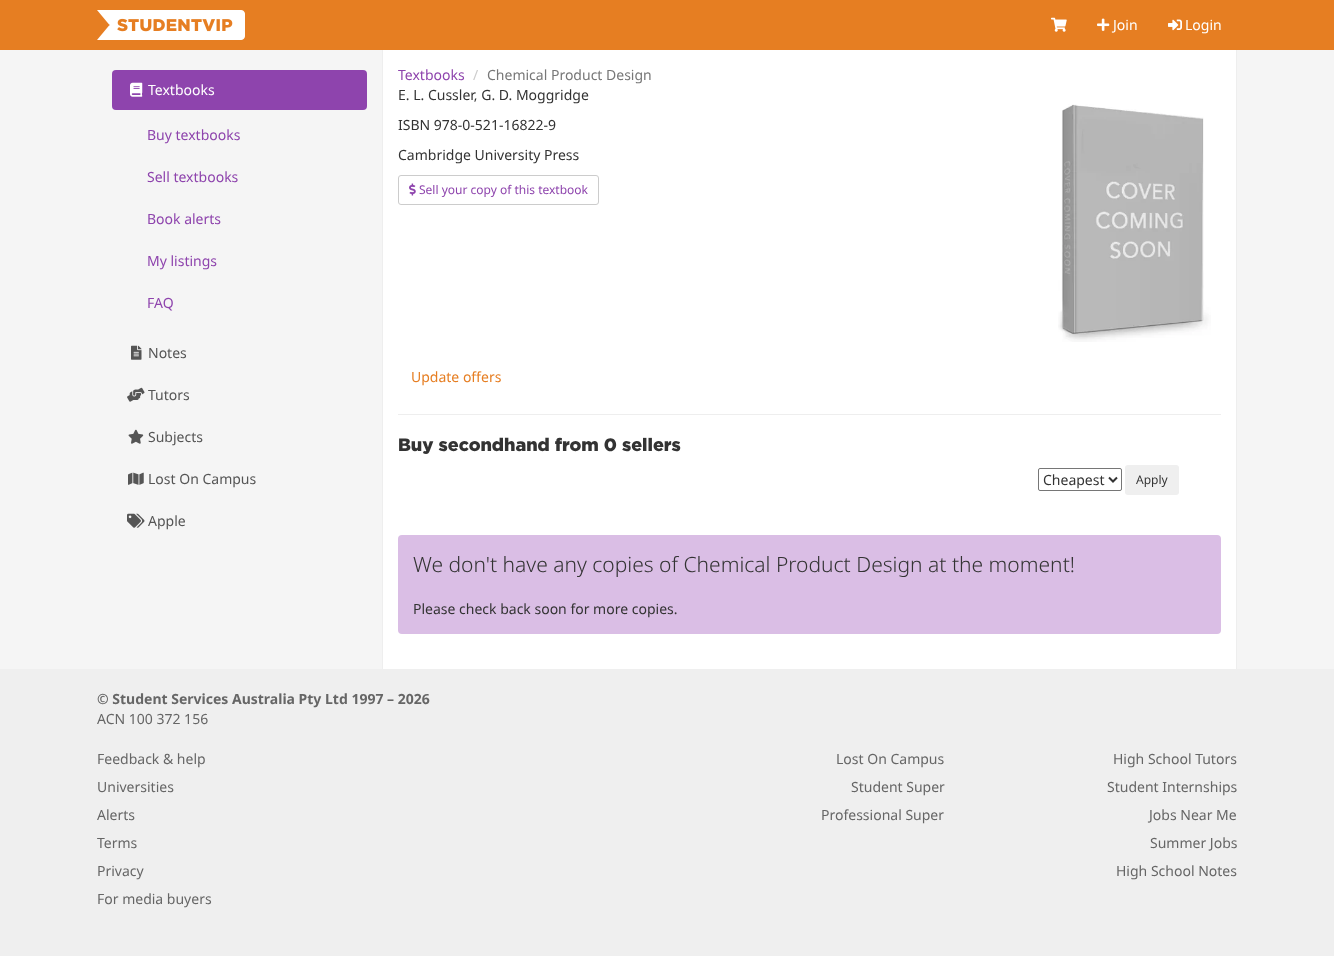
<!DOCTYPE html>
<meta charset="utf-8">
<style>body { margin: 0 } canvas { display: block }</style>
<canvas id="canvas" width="1334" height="956"></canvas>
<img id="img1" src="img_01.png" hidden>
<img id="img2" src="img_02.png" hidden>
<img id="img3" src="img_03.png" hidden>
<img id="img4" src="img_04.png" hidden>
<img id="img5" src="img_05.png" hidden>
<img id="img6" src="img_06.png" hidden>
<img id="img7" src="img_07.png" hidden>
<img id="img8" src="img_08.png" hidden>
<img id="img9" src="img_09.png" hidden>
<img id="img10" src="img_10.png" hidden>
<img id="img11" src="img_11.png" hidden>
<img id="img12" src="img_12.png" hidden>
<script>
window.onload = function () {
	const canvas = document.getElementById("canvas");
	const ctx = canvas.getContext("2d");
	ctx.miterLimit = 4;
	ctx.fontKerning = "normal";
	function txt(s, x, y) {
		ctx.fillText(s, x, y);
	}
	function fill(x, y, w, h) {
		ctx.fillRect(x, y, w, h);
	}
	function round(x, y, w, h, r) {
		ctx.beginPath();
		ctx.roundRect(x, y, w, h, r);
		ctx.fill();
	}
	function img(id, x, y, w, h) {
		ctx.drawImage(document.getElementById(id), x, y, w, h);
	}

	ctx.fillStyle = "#F5F5F5";
	fill(0, 0, 1334, 956);
	ctx.fillStyle = "#E67E22";
	fill(0, 0, 1334, 50);
	img("img1", 97, 10, 148, 30);
	img("img2", 1051, 17, 16, 15);
	img("img3", 1097, 18, 13, 13);
	img("img4", 1168, 19, 14, 12);
	ctx.fillStyle = "#8E44AD";
	round(112, 70, 255, 40, 4);
	img("img5", 130, 82, 13, 15);
	img("img6", 131, 345, 11, 15);
	img("img7", 127, 387, 18, 15);
	img("img8", 128, 429, 16, 15);
	img("img9", 128, 472, 16, 13);
	img("img10", 127, 513, 18, 15);
	ctx.fillStyle = "#FFFFFF";
	fill(383, 50, 853, 619);
	ctx.fillStyle = "#EEEEEE";
	fill(1236, 50, 1, 619);
	fill(382, 50, 1, 619);
	ctx.beginPath();
	ctx.roundRect(398.5, 175.5, 200, 29, 2.5);
	ctx.strokeStyle = "#CCCCCC";
	ctx.stroke();
	img("img11", 409, 183, 7, 13);
	img("img12", 1058, 104, 153, 238);
	fill(398, 414, 823, 1);
	ctx.beginPath();
	ctx.roundRect(1038.5, 468.5, 83, 22, 1.5);
	ctx.strokeStyle = "#767676";
	ctx.stroke();
	ctx.beginPath();
	ctx.moveTo(1109, 477.5);
	ctx.lineTo(1113, 481.5);
	ctx.lineTo(1117, 477.5);
	ctx.strokeStyle = "#333333";
	ctx.lineWidth = 2;
	ctx.stroke();
	ctx.fillStyle = "#EFEFEF";
	round(1125, 465, 54, 30, 3);
	ctx.fillStyle = "#DABEE5";
	round(398, 535, 823, 99, 4);
	ctx.fillStyle = "#EFEFEF";
	fill(0, 669, 1334, 287);
	ctx.font = "14px Noto Sans";
	ctx.fillStyle = "#FFFFFF";
	txt("Join", 1113, 30);
	txt("Login", 1185, 30);
	txt("Textbooks", 148, 95);
	ctx.fillStyle = "#8E44AD";
	txt("Buy textbooks", 147, 140);
	txt("Sell textbooks", 147, 182);
	txt("Book alerts", 147, 224);
	txt("My listings", 147, 266);
	txt("FAQ", 147, 308);
	ctx.fillStyle = "#555555";
	txt("Notes", 148, 358);
	txt("Tutors", 148, 400);
	txt("Subjects", 148, 442);
	txt("Lost On Campus", 148, 484);
	txt("Apple", 148, 526);
	ctx.fillStyle = "#8E44AD";
	txt("Textbooks", 398, 80);
	ctx.fillStyle = "#CCCCCC";
	txt("/", 473, 80);
	ctx.fillStyle = "#777777";
	txt("Chemical Product Design", 487, 80);
	ctx.fillStyle = "#333333";
	txt("E. L. Cussler, G. D. Moggridge", 398, 100);
	txt("ISBN 978-0-521-16822-9", 398, 130);
	txt("Cambridge University Press", 398, 160);
	ctx.font = "12px Noto Sans";
	ctx.fillStyle = "#8E44AD";
	txt("Sell your copy of this textbook", 419, 194);
	ctx.font = "14px Noto Sans";
	ctx.fillStyle = "#E67E22";
	txt("Update offers", 411, 382);
	ctx.font = "900 18px Gotham";
	ctx.fillStyle = "#333333";
	txt("Buy secondhand from 0 sellers", 398, 451);
	ctx.font = "14px Noto Sans";
	txt("Cheapest", 1043, 485);
	ctx.font = "12px Noto Sans";
	txt("Apply", 1136, 484);
	ctx.font = "300 21px Noto Sans";
	txt("We don't have any copies of Chemical Product Design at the moment!", 413, 572);
	ctx.font = "14px Noto Sans";
	txt("Please check back soon for more copies.", 413, 614);
	ctx.font = "bold 14px Noto Sans";
	ctx.fillStyle = "#666666";
	txt("© Student Services Australia Pty Ltd 1997 – 2026", 97, 704);
	ctx.font = "14px Noto Sans";
	txt("ACN 100 372 156", 97, 724);
	txt("Feedback & help", 97, 764);
	txt("Universities", 97, 792);
	txt("Alerts", 97, 820);
	txt("Terms", 97, 848);
	txt("Privacy", 97, 876);
	txt("For media buyers", 97, 904);
	txt("Lost On Campus", 836, 764);
	txt("Student Super", 851, 792);
	txt("Professional Super", 821, 820);
	txt("High School Tutors", 1113, 764);
	txt("Student Internships", 1107, 792);
	txt("Jobs Near Me", 1149, 820);
	txt("Summer Jobs", 1150, 848);
	txt("High School Notes", 1116, 876);
};
</script>
